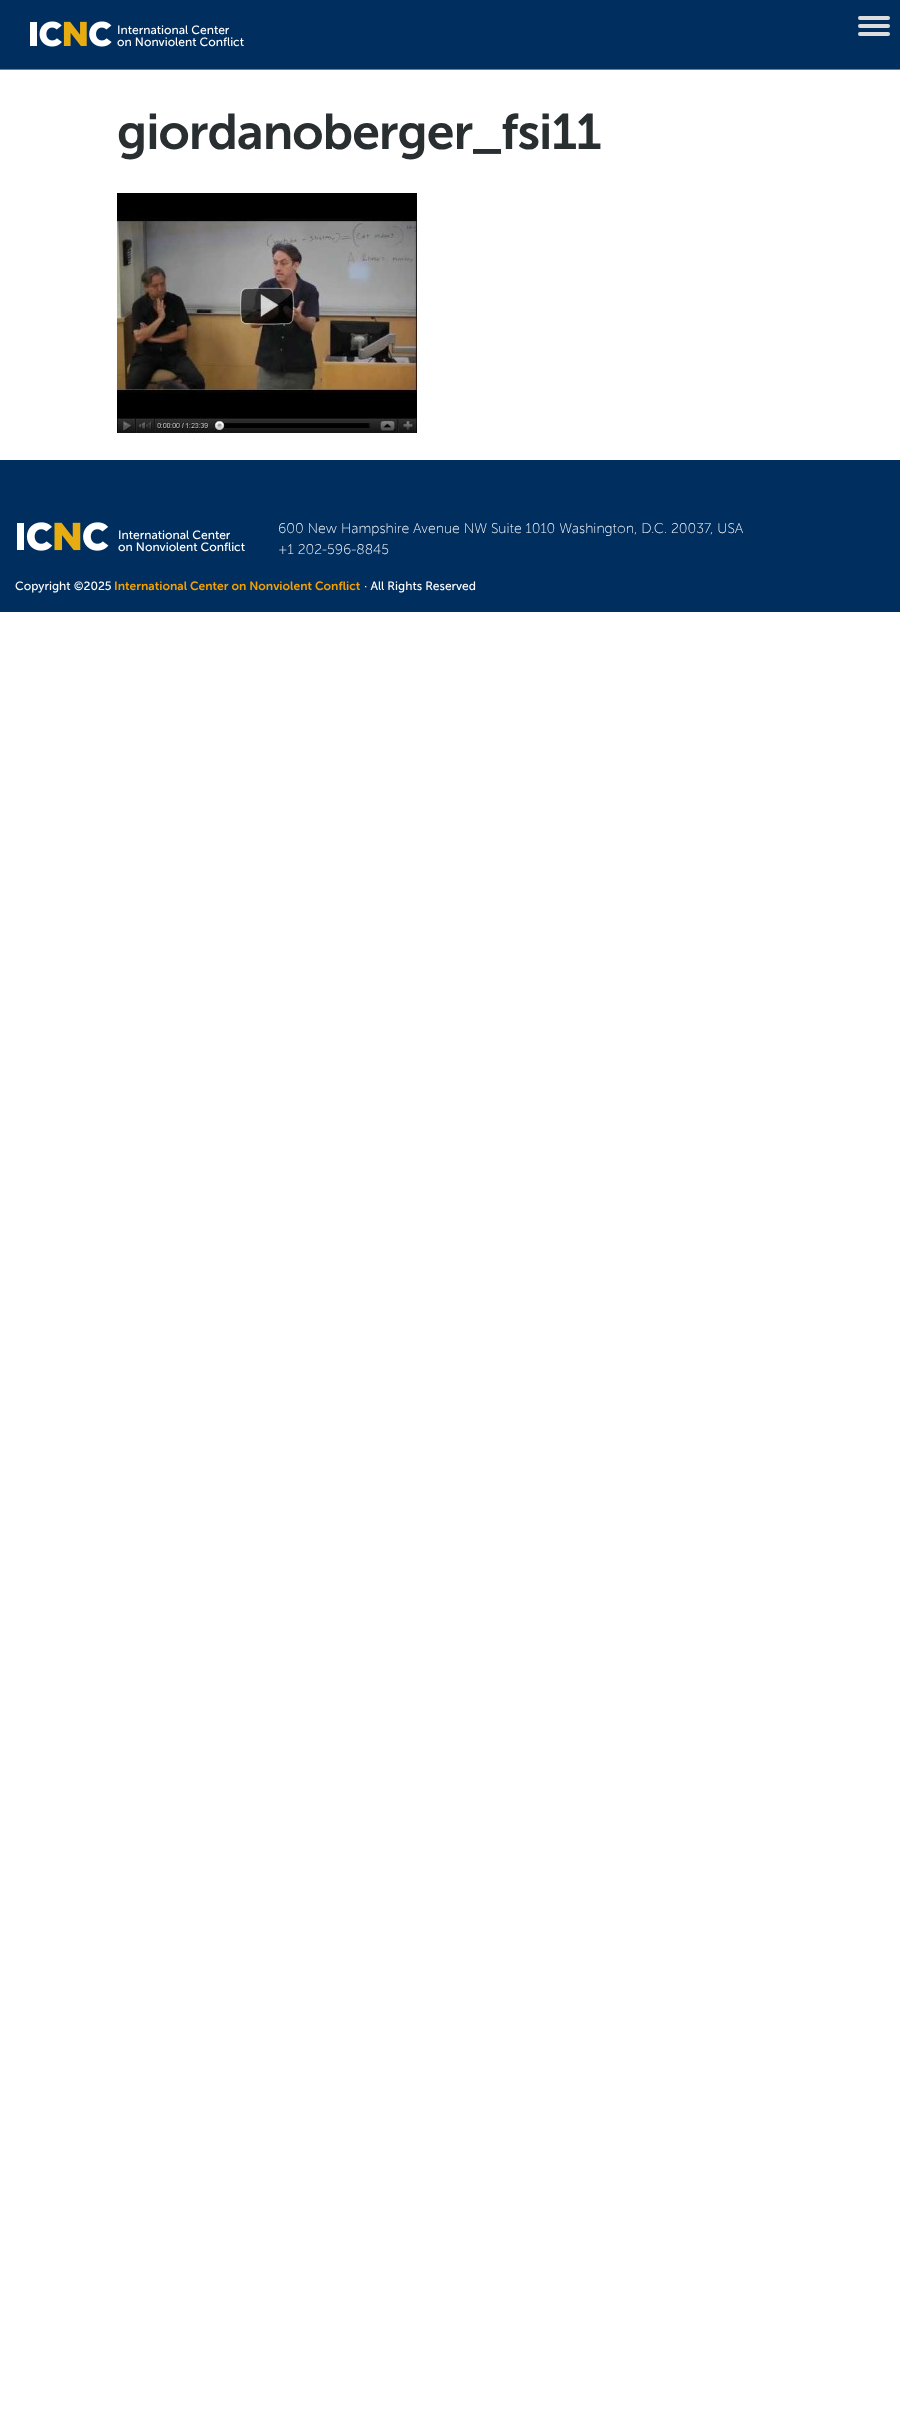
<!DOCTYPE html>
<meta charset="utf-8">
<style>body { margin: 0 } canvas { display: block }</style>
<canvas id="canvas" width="900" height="2433"></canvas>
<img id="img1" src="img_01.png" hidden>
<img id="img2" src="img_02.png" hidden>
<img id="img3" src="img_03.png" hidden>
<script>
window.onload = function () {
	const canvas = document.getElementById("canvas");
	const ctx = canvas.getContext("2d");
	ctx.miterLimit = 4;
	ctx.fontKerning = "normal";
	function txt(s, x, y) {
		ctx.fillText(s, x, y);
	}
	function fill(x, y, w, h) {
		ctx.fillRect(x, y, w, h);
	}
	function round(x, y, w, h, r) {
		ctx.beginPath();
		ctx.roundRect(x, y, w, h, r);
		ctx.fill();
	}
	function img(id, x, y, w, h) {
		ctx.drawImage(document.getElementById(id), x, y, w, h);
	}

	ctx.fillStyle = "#FFFFFF";
	fill(0, 0, 900, 2433);
	ctx.fillStyle = "#002E5F";
	fill(0, 0, 900, 69);
	ctx.fillStyle = "#66829F";
	fill(0, 69, 900, 1);
	img("img1", 30, 21, 82, 26);
	ctx.fillStyle = "#DDDDDD";
	round(858, 16, 32, 4, 2);
	round(858, 24, 32, 4, 2);
	round(858, 32, 32, 4, 2);
	img("img2", 117, 193, 300, 240);
	ctx.fillStyle = "#002E5F";
	fill(0, 460, 900, 152);
	img("img3", 17, 522, 92, 29);
	ctx.font = "12px 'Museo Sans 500'";
	ctx.fillStyle = "#FFFFFF";
	txt("International Center", 117, 34);
	txt("on Nonviolent Conflict", 117, 46);
	ctx.letterSpacing = "-1px";
	ctx.font = "600 50px 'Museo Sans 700'";
	ctx.fillStyle = "#292E31";
	txt("giordanoberger_fsi11", 117, 149);
	ctx.letterSpacing = "0px";
	ctx.font = "12px 'Museo Sans 500'";
	ctx.fillStyle = "#FFFFFF";
	txt("International Center", 118, 539);
	txt("on Nonviolent Conflict", 118, 551);
	ctx.font = "300 14px 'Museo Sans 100'";
	txt("600 New Hampshire Avenue NW Suite 1010 Washington, D.C. 20037, USA", 278, 533);
	txt("+1 202-596-8845", 278, 554);
	ctx.font = "12px 'Museo Sans 500'";
	txt("Copyright ©2025", 15, 590);
	ctx.font = "600 12px 'Museo Sans 700'";
	ctx.fillStyle = "#F3A000";
	txt("International Center on Nonviolent Conflict", 114, 590);
	ctx.font = "12px 'Museo Sans 500'";
	ctx.fillStyle = "#FFFFFF";
	txt("· All Rights Reserved", 364, 590);
};
</script>
